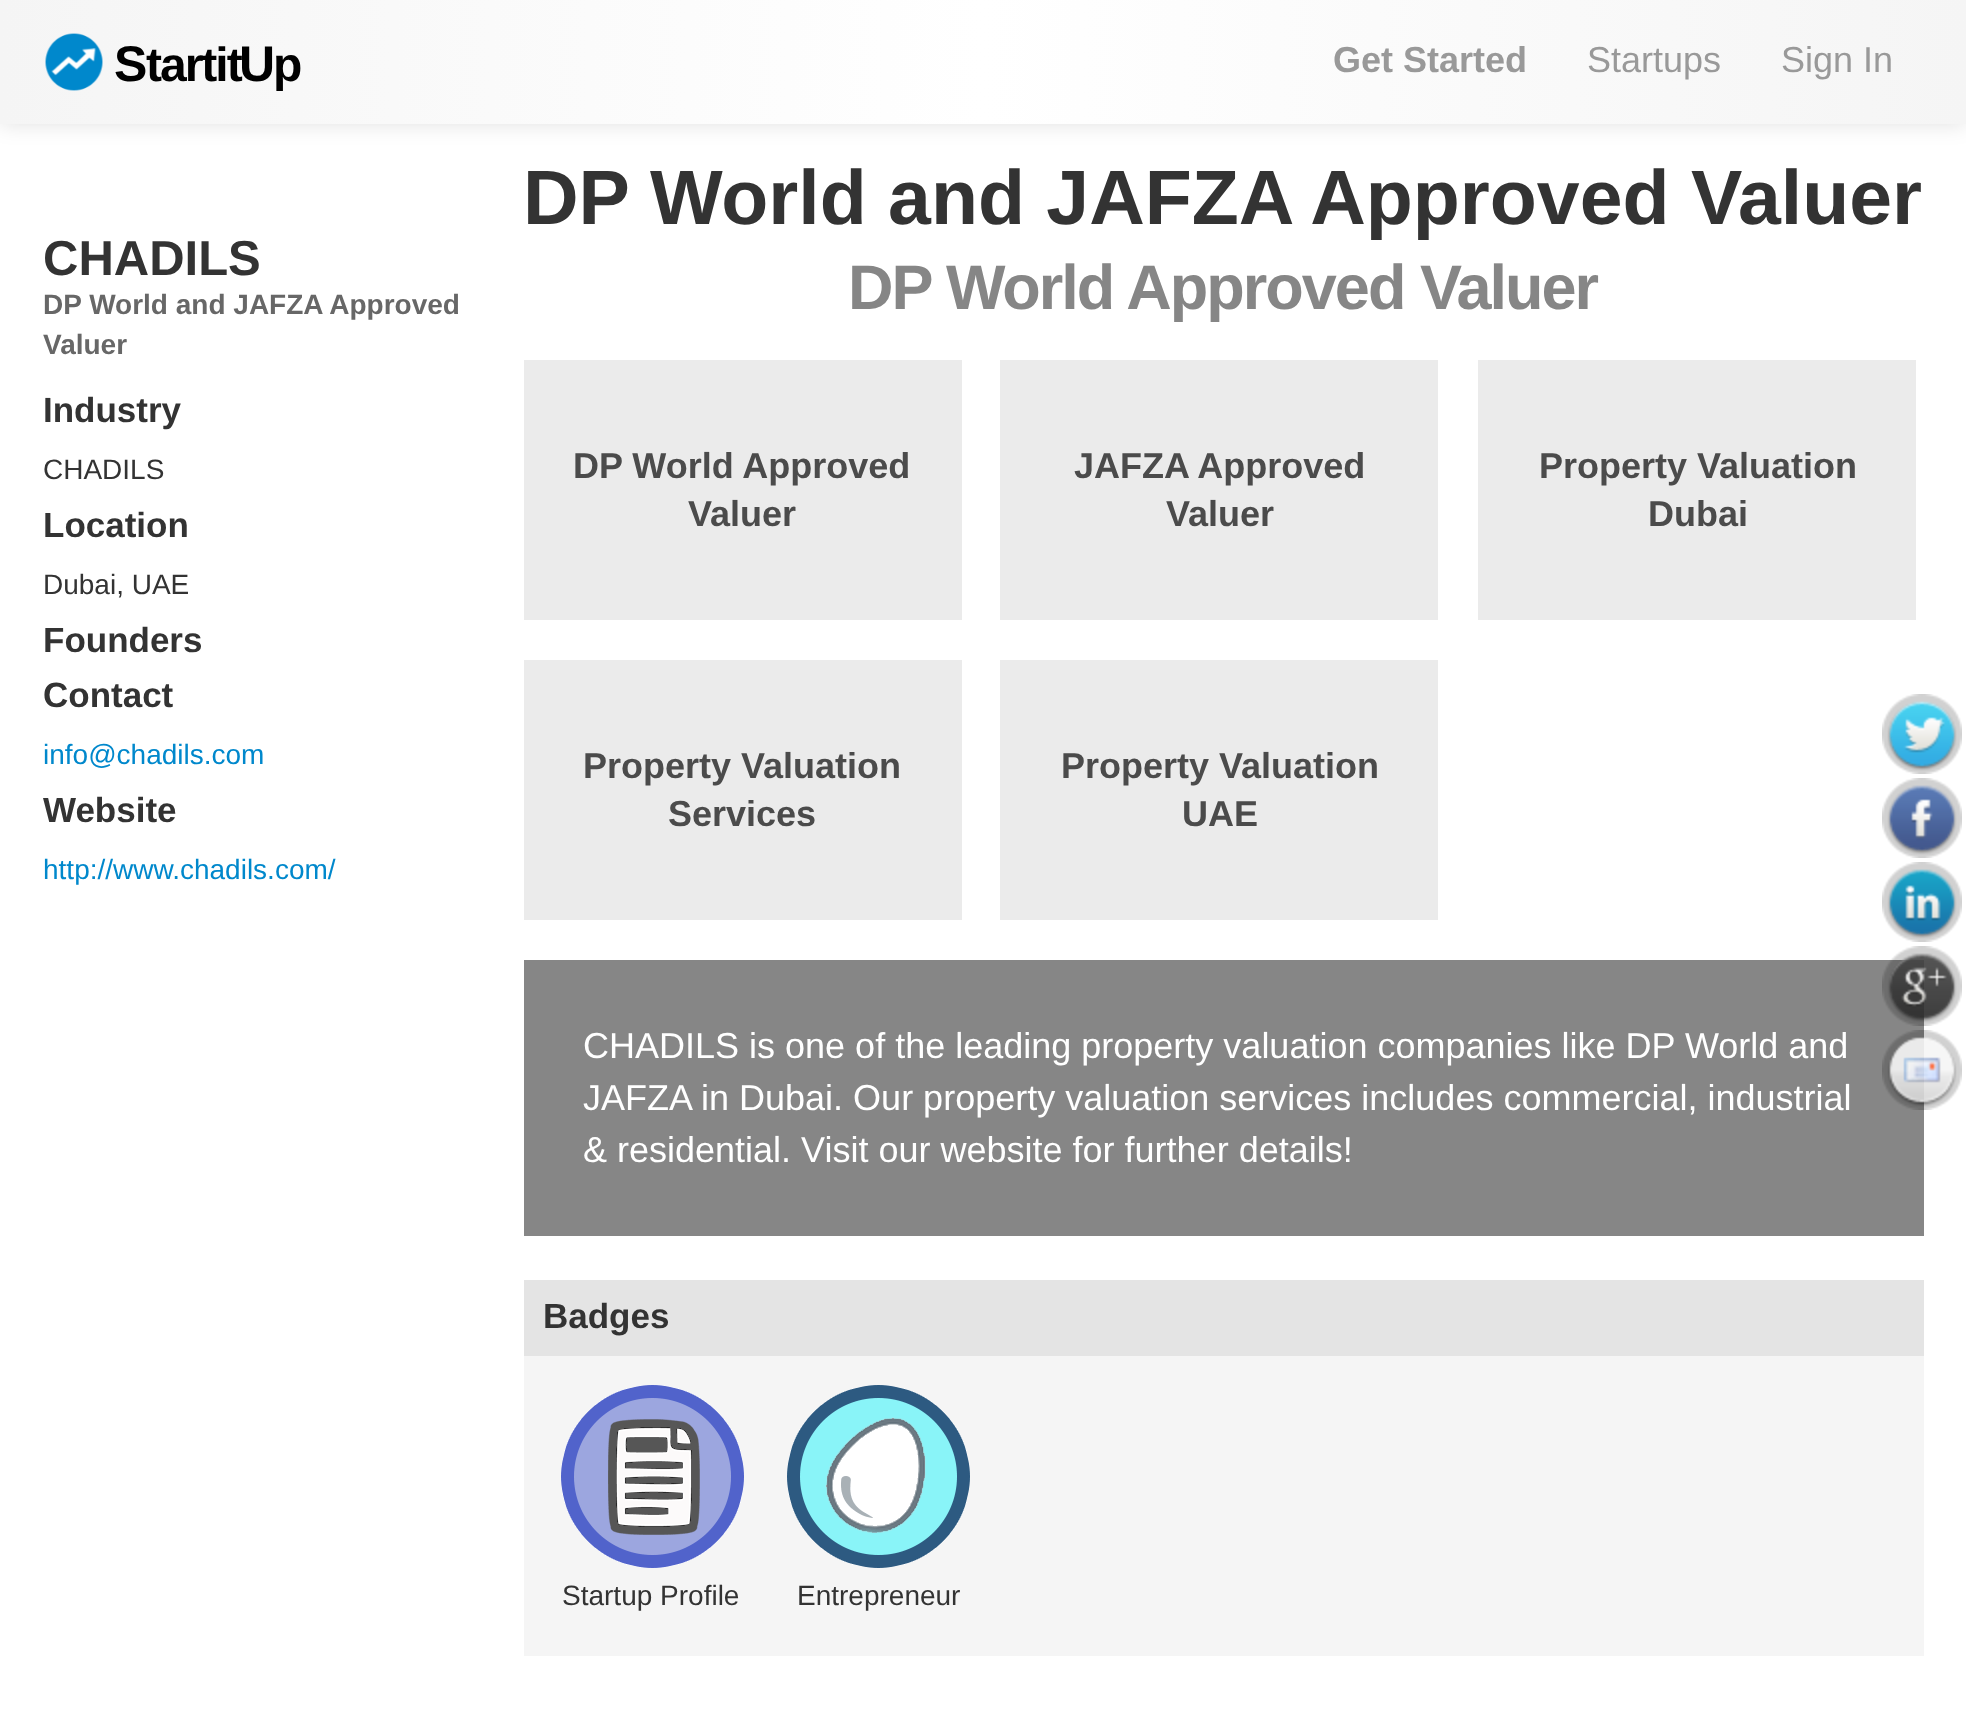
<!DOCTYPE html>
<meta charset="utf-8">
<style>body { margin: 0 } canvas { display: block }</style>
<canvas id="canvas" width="1966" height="1726"></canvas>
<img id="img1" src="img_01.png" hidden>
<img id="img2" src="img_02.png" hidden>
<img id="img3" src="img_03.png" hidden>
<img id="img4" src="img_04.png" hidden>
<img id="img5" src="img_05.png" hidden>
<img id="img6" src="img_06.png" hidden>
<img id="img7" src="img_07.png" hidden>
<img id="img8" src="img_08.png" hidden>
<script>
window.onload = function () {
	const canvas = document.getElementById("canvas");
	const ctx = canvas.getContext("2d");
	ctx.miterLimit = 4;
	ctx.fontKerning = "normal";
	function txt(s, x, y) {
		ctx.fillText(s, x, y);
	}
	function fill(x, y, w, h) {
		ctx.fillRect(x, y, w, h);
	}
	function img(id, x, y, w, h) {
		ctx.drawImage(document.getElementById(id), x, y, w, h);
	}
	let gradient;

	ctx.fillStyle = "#FFFFFF";
	fill(0, 0, 1966, 1726);
	ctx.fillStyle = "rgba(0, 0, 0, 0.1)";
	ctx.filter = "blur(10px)";
	ctx.beginPath();
	ctx.rect(0, 2, 1966, 124);
	ctx.fill();
	ctx.filter = "none";
	gradient = ctx.createLinearGradient(0, 62, 1966, 62);
	gradient.addColorStop(0, "#F5F5F5");
	gradient.addColorStop(0.5, "#FFFFFF");
	gradient.addColorStop(1, "#F5F5F5");
	ctx.fillStyle = gradient;
	fill(0, 0, 1966, 124);
	img("img1", 45, 33, 58, 58);
	ctx.fillStyle = "#EBEBEB";
	fill(524, 360, 438, 260);
	fill(1000, 360, 438, 260);
	fill(1478, 360, 438, 260);
	fill(524, 660, 438, 260);
	fill(1000, 660, 438, 260);
	ctx.fillStyle = "#868686";
	fill(524, 960, 1400, 276);
	ctx.fillStyle = "#F5F5F5";
	fill(524, 1356, 1400, 300);
	ctx.fillStyle = "#E4E4E4";
	fill(524, 1280, 1400, 76);
	img("img2", 561, 1385, 183, 183);
	img("img3", 787, 1385, 183, 183);
	img("img4", 1882, 694, 80, 80);
	img("img5", 1882, 778, 80, 80);
	img("img6", 1882, 862, 80, 80);
	img("img7", 1882, 946, 80, 80);
	img("img8", 1882, 1030, 80, 80);
	ctx.letterSpacing = "-2px";
	ctx.font = "bold 50px Liberation Sans";
	ctx.fillStyle = "#000000";
	txt("S", 114, 81);
	ctx.font = "bold 48px Liberation Sans";
	txt("tartit", 146, 81);
	ctx.font = "bold 50px Liberation Sans";
	txt("U", 239, 81);
	ctx.font = "bold 48px Liberation Sans";
	txt("p", 273, 81);
	ctx.letterSpacing = "0px";
	ctx.font = "bold 36px Liberation Sans";
	ctx.fillStyle = "#999999";
	txt("Get Started", 1333, 72);
	ctx.font = "36px Liberation Sans";
	txt("Startups", 1587, 72);
	txt("Sign In", 1781, 72);
	ctx.font = "bold 49px Liberation Sans";
	ctx.fillStyle = "#333333";
	txt("CHADILS", 43, 275);
	ctx.font = "bold 28px Liberation Sans";
	ctx.fillStyle = "#676767";
	txt("DP World and JAFZA Approved", 43, 314);
	txt("Valuer", 43, 354);
	ctx.font = "bold 35px Liberation Sans";
	ctx.fillStyle = "#333333";
	txt("Industry", 43, 422);
	ctx.font = "28px Liberation Sans";
	txt("CHADILS", 43, 479);
	ctx.font = "bold 35px Liberation Sans";
	txt("Location", 43, 537);
	ctx.font = "28px Liberation Sans";
	txt("Dubai, UAE", 43, 594);
	ctx.font = "bold 35px Liberation Sans";
	txt("Founders", 43, 652);
	txt("Contact", 43, 707);
	ctx.font = "28px Liberation Sans";
	ctx.fillStyle = "#0088CC";
	txt("info@chadils.com", 43, 764);
	ctx.font = "bold 35px Liberation Sans";
	ctx.fillStyle = "#333333";
	txt("Website", 43, 822);
	ctx.font = "28px Liberation Sans";
	ctx.fillStyle = "#0088CC";
	txt("http://www.chadils.com/", 43, 879);
	ctx.font = "bold 77px Liberation Sans";
	ctx.fillStyle = "#333333";
	txt("DP World and JAFZA Approved Valuer", 523, 224);
	ctx.letterSpacing = "-2px";
	ctx.font = "bold 63px Liberation Sans";
	ctx.fillStyle = "#868686";
	txt("DP World Approved Valuer", 848, 309);
	ctx.letterSpacing = "0px";
	ctx.font = "bold 36px Liberation Sans";
	ctx.fillStyle = "#4B4B4B";
	txt("DP World Approved", 573, 478);
	txt("Valuer", 688, 526);
	txt("JAFZA Approved", 1074, 478);
	txt("Valuer", 1166, 526);
	txt("Property Valuation", 1539, 478);
	txt("Dubai", 1648, 526);
	txt("Property Valuation", 583, 778);
	txt("Services", 668, 826);
	txt("Property Valuation", 1061, 778);
	txt("UAE", 1182, 826);
	ctx.font = "36px Liberation Sans";
	ctx.fillStyle = "#FFFFFF";
	txt("CHADILS is one of the leading property valuation companies like DP World and", 583, 1058);
	txt("JAFZA in Dubai. Our property valuation services includes commercial, industrial", 583, 1110);
	txt("& residential. Visit our website for further details!", 583, 1162);
	ctx.font = "bold 35px Liberation Sans";
	ctx.fillStyle = "#333333";
	txt("Badges", 543, 1328);
	ctx.font = "28px Liberation Sans";
	txt("Startup Profile", 562, 1605);
	txt("Entrepreneur", 797, 1605);
};
</script>
